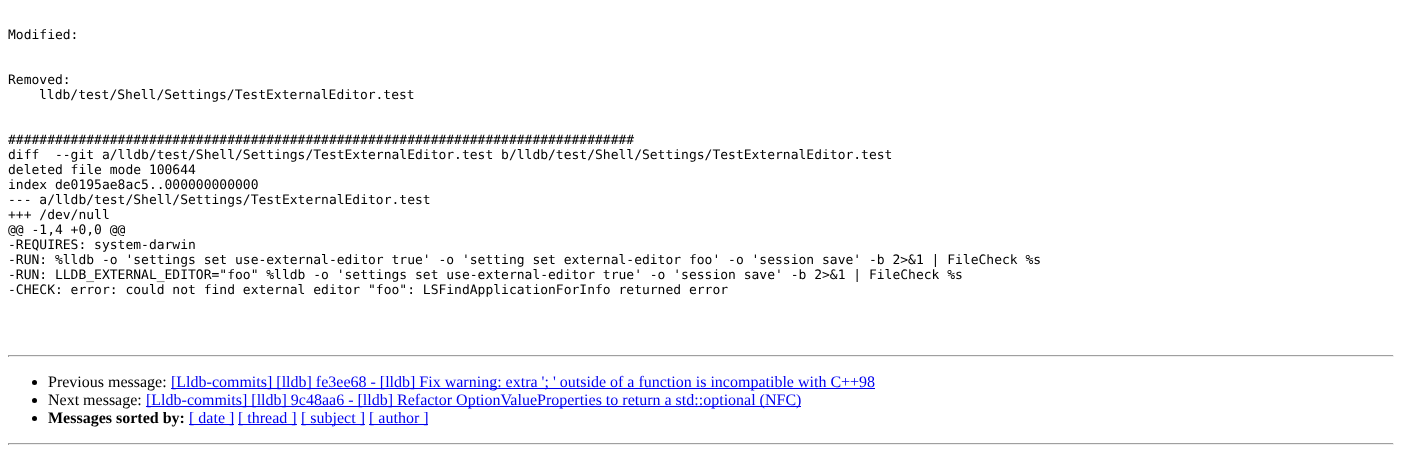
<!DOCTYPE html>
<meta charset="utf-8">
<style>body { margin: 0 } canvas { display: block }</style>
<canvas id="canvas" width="1402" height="457"></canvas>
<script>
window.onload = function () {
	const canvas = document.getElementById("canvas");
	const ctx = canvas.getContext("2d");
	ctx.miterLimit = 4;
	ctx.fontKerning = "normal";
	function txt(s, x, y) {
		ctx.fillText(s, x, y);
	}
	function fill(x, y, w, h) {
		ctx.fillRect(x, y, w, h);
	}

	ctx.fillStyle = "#FFFFFF";
	fill(0, 0, 1402, 457);
	ctx.fillStyle = "#9F9F9F";
	fill(8, 355, 1386, 1);
	ctx.fillStyle = "#EEEEEE";
	fill(1393, 355, 1, 2);
	fill(8, 356, 1386, 1);
	ctx.fillStyle = "#9F9F9F";
	fill(8, 355, 1, 2);
	ctx.fillStyle = "#000000";
	ctx.beginPath();
	ctx.arc(34.5, 382.5, 2.5, 0, Math.PI * 2);
	ctx.fill();
	ctx.fillStyle = "#0000EE";
	fill(171, 388, 704, 1);
	ctx.fillStyle = "#000000";
	ctx.beginPath();
	ctx.arc(34.5, 400.5, 2.5, 0, Math.PI * 2);
	ctx.fill();
	ctx.fillStyle = "#0000EE";
	fill(146, 406, 655, 1);
	ctx.fillStyle = "#000000";
	ctx.beginPath();
	ctx.arc(34.5, 418.5, 2.5, 0, Math.PI * 2);
	ctx.fill();
	ctx.fillStyle = "#0000EE";
	fill(189, 424, 45, 1);
	fill(238, 424, 59, 1);
	fill(301, 424, 64, 1);
	fill(369, 424, 59, 1);
	ctx.fillStyle = "#9F9F9F";
	fill(8, 443, 1386, 1);
	ctx.fillStyle = "#EEEEEE";
	fill(1393, 443, 1, 2);
	fill(8, 444, 1386, 1);
	ctx.fillStyle = "#9F9F9F";
	fill(8, 443, 1, 2);
	ctx.font = "13px DejaVu Sans Mono";
	ctx.fillStyle = "#000000";
	txt("Modified:", 8, 39);
	txt("Removed:", 8, 84);
	txt("lldb/test/Shell/Settings/TestExternalEditor.test", 39, 99);
	txt("################################################################################", 8, 144);
	txt("diff  --git a/lldb/test/Shell/Settings/TestExternalEditor.test b/lldb/test/Shell/Settings/TestExternalEditor.test", 8, 159);
	txt("deleted file mode 100644", 8, 174);
	txt("index de0195ae8ac5..000000000000", 8, 189);
	txt("--- a/lldb/test/Shell/Settings/TestExternalEditor.test", 8, 204);
	txt("+++ /dev/null", 8, 219);
	txt("@@ -1,4 +0,0 @@", 8, 234);
	txt("-REQUIRES: system-darwin", 8, 249);
	txt("-RUN: %lldb -o 'settings set use-external-editor true' -o 'setting set external-editor foo' -o 'session save' -b 2>&1 | FileCheck %s", 8, 264);
	txt("-RUN: LLDB_EXTERNAL_EDITOR=\"foo\" %lldb -o 'settings set use-external-editor true' -o 'session save' -b 2>&1 | FileCheck %s", 8, 279);
	txt("-CHECK: error: could not find external editor \"foo\": LSFindApplicationForInfo returned error", 8, 294);
	ctx.font = "16px Liberation Serif";
	txt("Previous message:", 48, 387);
	ctx.fillStyle = "#0000EE";
	txt("[Lldb-commits] [lldb] fe3ee68 - [lldb] Fix warning: extra '; ' outside of a function is incompatible with C++98", 171, 387);
	ctx.fillStyle = "#000000";
	txt("Next message:", 48, 405);
	ctx.fillStyle = "#0000EE";
	txt("[Lldb-commits] [lldb] 9c48aa6 - [lldb] Refactor OptionValueProperties to return a std::optional (NFC)", 146, 405);
	ctx.font = "bold 16px Liberation Serif";
	ctx.fillStyle = "#000000";
	txt("Messages sorted by:", 48, 423);
	ctx.font = "16px Liberation Serif";
	ctx.fillStyle = "#0000EE";
	txt("[ date ]", 189, 423);
	txt("[ thread ]", 238, 423);
	txt("[ subject ]", 301, 423);
	txt("[ author ]", 369, 423);
};
</script>
